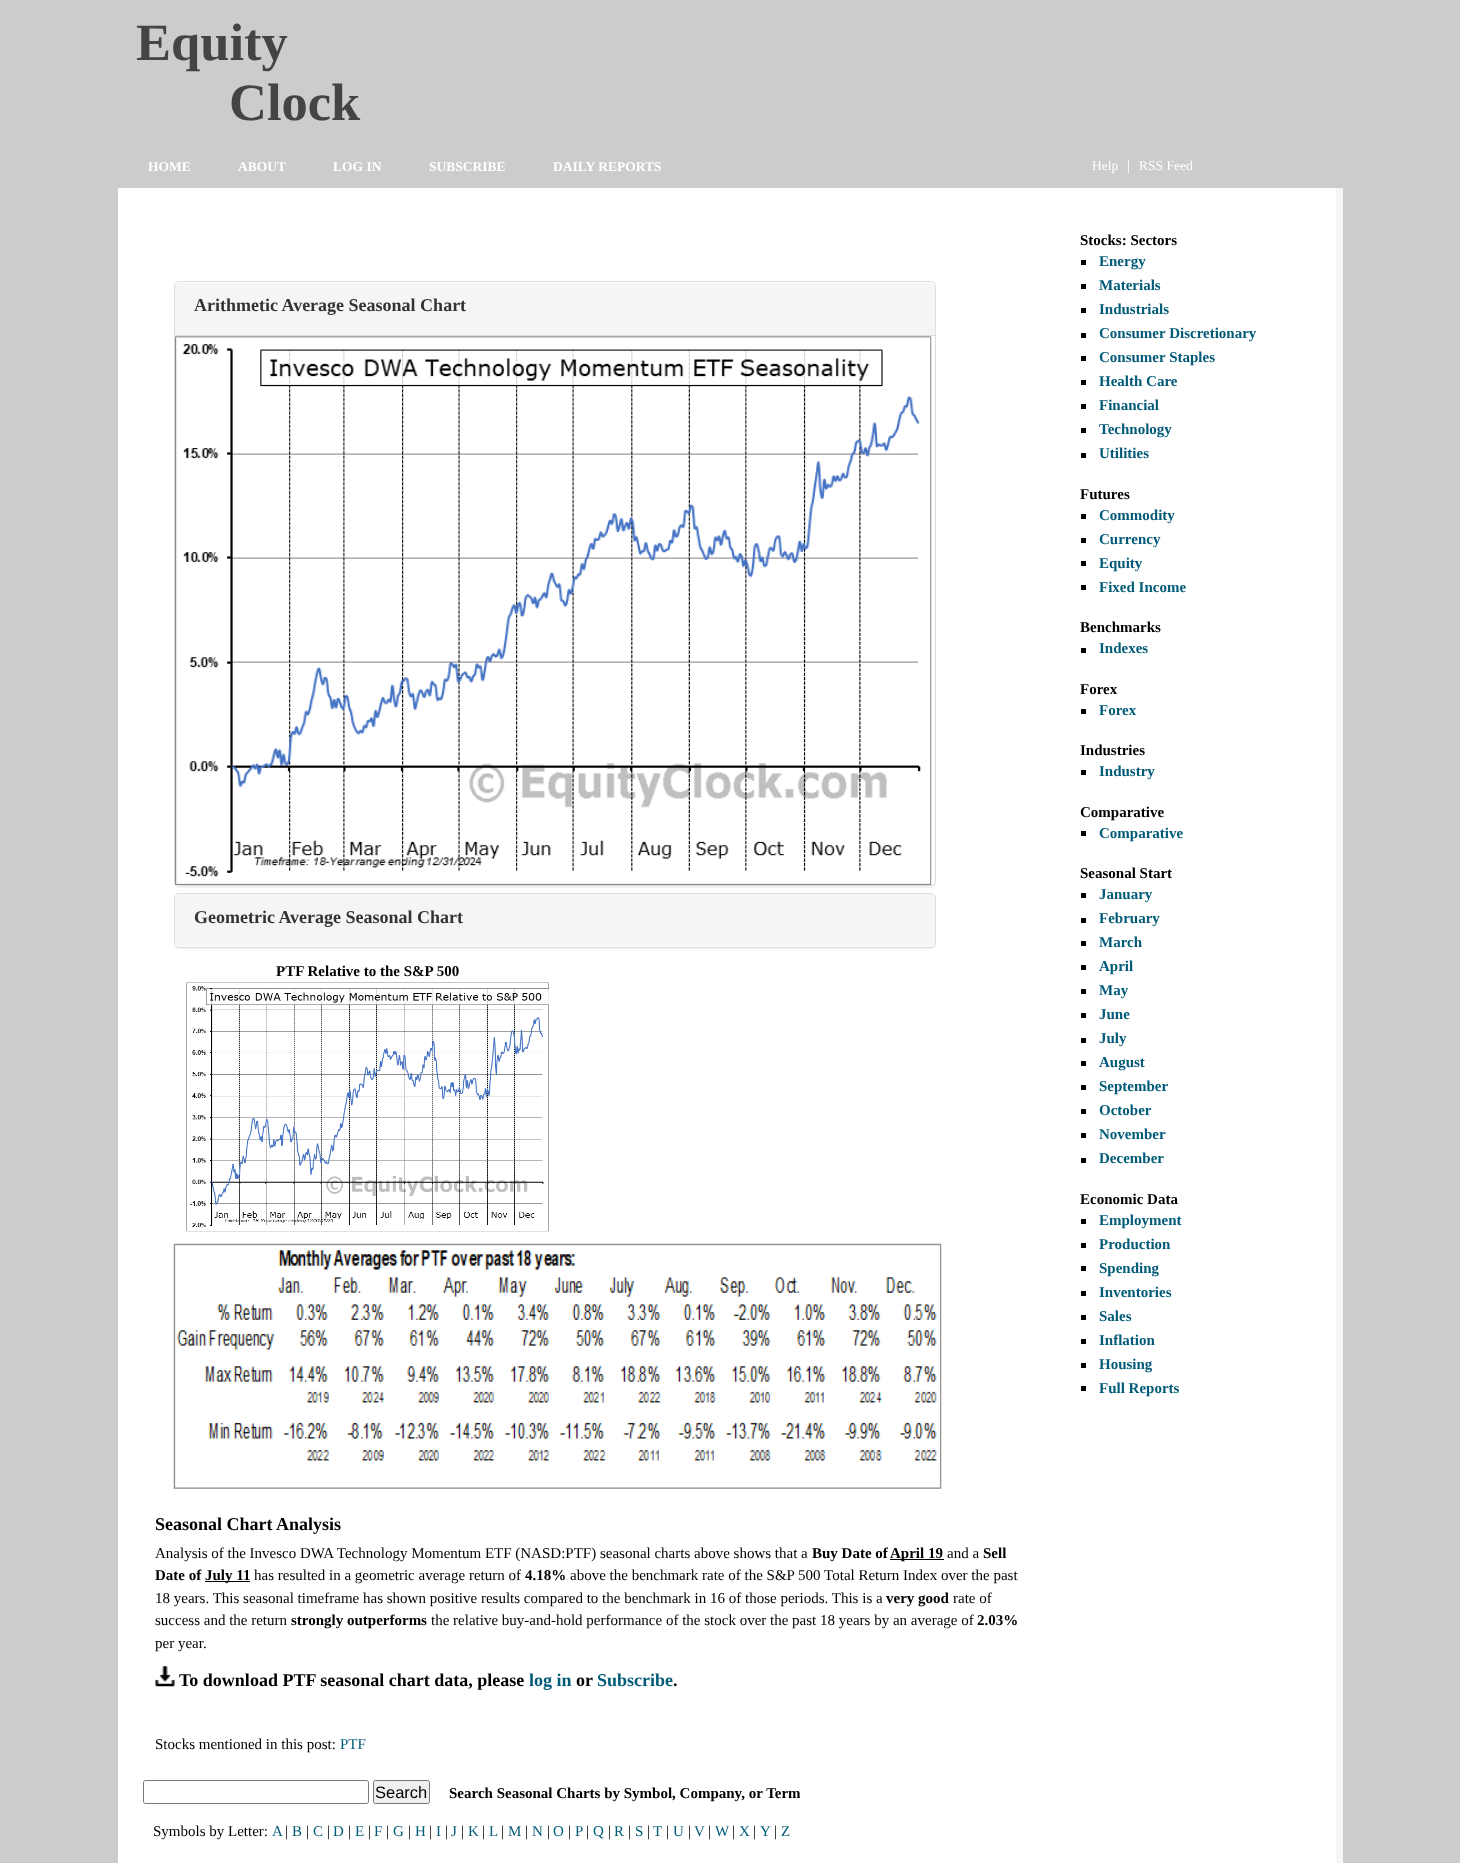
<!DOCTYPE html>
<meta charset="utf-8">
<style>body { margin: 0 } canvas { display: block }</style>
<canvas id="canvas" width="1460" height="1863"></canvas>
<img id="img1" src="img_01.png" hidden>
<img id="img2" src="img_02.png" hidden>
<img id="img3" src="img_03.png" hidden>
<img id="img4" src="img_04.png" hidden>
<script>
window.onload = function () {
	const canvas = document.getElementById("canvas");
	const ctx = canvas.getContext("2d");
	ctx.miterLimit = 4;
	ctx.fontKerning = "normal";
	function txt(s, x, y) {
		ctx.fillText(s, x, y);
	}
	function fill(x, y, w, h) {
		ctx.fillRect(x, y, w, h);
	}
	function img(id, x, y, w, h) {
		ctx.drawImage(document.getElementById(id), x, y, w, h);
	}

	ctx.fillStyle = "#CCCCCC";
	fill(0, 0, 1460, 1863);
	ctx.fillStyle = "#F7F6F6";
	fill(1336, 188, 7, 1675);
	ctx.fillStyle = "#FFFFFF";
	fill(118, 188, 1218, 1675);
	ctx.save();
	ctx.beginPath();
	ctx.moveTo(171, 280);
	ctx.lineTo(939, 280);
	ctx.lineTo(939, 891);
	ctx.lineTo(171, 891);
	ctx.closePath();
	ctx.moveTo(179, 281);
	ctx.lineTo(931, 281);
	ctx.bezierCurveTo(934, 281, 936, 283, 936, 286);
	ctx.lineTo(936, 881);
	ctx.bezierCurveTo(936, 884, 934, 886, 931, 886);
	ctx.lineTo(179, 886);
	ctx.bezierCurveTo(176, 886, 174, 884, 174, 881);
	ctx.lineTo(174, 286);
	ctx.bezierCurveTo(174, 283, 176, 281, 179, 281);
	ctx.closePath();
	ctx.clip("evenodd");
	ctx.fillStyle = "rgba(0, 0, 0, 0.05)";
	ctx.filter = "blur(0.5px)";
	ctx.beginPath();
	ctx.roundRect(174, 283, 762, 605, 5);
	ctx.fill();
	ctx.filter = "none";
	ctx.restore();
	ctx.beginPath();
	ctx.roundRect(174.5, 281.5, 761, 604, 4.5);
	ctx.strokeStyle = "#DDDDDD";
	ctx.stroke();
	ctx.fillStyle = "#F5F5F5";
	ctx.beginPath();
	ctx.roundRect(175, 283, 760, 52, [4, 4, 0, 0]);
	ctx.fill();
	ctx.fillStyle = "#DDDDDD";
	fill(175, 335, 760, 1);
	img("img1", 175, 336, 757, 549);
	ctx.fillStyle = "rgba(0, 0, 0, 0.05)";
	ctx.filter = "blur(0.5px)";
	ctx.beginPath();
	ctx.roundRect(174, 894, 762, 55, 5);
	ctx.fill();
	ctx.filter = "none";
	ctx.fillStyle = "#FFFFFF";
	ctx.beginPath();
	ctx.roundRect(174.5, 893.5, 761, 54, 4.5);
	ctx.fill();
	ctx.stroke();
	ctx.fillStyle = "#F5F5F5";
	ctx.beginPath();
	ctx.roundRect(175, 894, 760, 52, [4, 4, 0, 0]);
	ctx.fill();
	img("img2", 186, 982, 363, 250);
	img("img3", 173, 1243, 769, 246);
	ctx.fillStyle = "#000000";
	fill(890, 1559, 54, 1);
	fill(205, 1581, 45, 1);
	img("img4", 155, 1666, 20, 21);
	ctx.beginPath();
	ctx.roundRect(143.5, 1780.5, 225, 23, 2);
	ctx.strokeStyle = "#767676";
	ctx.stroke();
	ctx.fillStyle = "#EFEFEF";
	ctx.beginPath();
	ctx.roundRect(373.5, 1780.5, 56, 23, 2);
	ctx.fill();
	ctx.stroke();
	ctx.fillStyle = "#000000";
	fill(1081, 260, 5, 5);
	fill(1081, 284, 5, 5);
	fill(1081, 308, 5, 5);
	fill(1081, 333, 5, 5);
	fill(1081, 356, 5, 5);
	fill(1081, 380, 5, 5);
	fill(1081, 404, 5, 5);
	fill(1081, 428, 5, 5);
	fill(1081, 453, 5, 5);
	fill(1081, 514, 5, 5);
	fill(1081, 538, 5, 5);
	fill(1081, 561, 5, 5);
	fill(1081, 585, 5, 5);
	fill(1081, 648, 5, 5);
	fill(1081, 709, 5, 5);
	fill(1081, 770, 5, 5);
	fill(1081, 831, 5, 5);
	fill(1081, 893, 5, 5);
	fill(1081, 918, 5, 5);
	fill(1081, 941, 5, 5);
	fill(1081, 965, 5, 5);
	fill(1081, 989, 5, 5);
	fill(1081, 1013, 5, 5);
	fill(1081, 1038, 5, 5);
	fill(1081, 1061, 5, 5);
	fill(1081, 1085, 5, 5);
	fill(1081, 1109, 5, 5);
	fill(1081, 1133, 5, 5);
	fill(1081, 1158, 5, 5);
	fill(1081, 1219, 5, 5);
	fill(1081, 1243, 5, 5);
	fill(1081, 1266, 5, 5);
	fill(1081, 1291, 5, 5);
	fill(1081, 1315, 5, 5);
	fill(1081, 1339, 5, 5);
	fill(1081, 1363, 5, 5);
	fill(1081, 1386, 5, 5);
	ctx.font = "bold 52.5px Liberation Serif";
	ctx.fillStyle = "#444444";
	txt("Equity", 136, 60);
	txt("Clock", 229, 120);
	ctx.font = "bold 13.5px Liberation Serif";
	ctx.fillStyle = "#FFFFFF";
	txt("HOME", 148, 171);
	txt("ABOUT", 238, 171);
	txt("LOG IN", 333, 171);
	txt("SUBSCRIBE", 429, 171);
	txt("DAILY REPORTS", 553, 171);
	ctx.font = "13.5px Liberation Serif";
	txt("Help", 1092, 170);
	ctx.font = "15px Liberation Serif";
	txt("|", 1127, 170);
	ctx.font = "13.5px Liberation Serif";
	txt("RSS Feed", 1139, 170);
	ctx.font = "bold 18px Liberation Serif";
	ctx.fillStyle = "#333333";
	txt("Arithmetic Average Seasonal Chart", 194, 311);
	txt("Geometric Average Seasonal Chart", 194, 923);
	ctx.font = "bold 15px Liberation Serif";
	ctx.fillStyle = "#000000";
	txt("PTF Relative to the S&P 500", 276, 976);
	ctx.font = "bold 18px Liberation Serif";
	txt("Seasonal Chart Analysis", 155, 1530);
	ctx.font = "15px Liberation Serif";
	txt("Analysis of the Invesco DWA Technology Momentum ETF (NASD:PTF) seasonal charts above shows that a", 155, 1558);
	ctx.font = "bold 15px Liberation Serif";
	txt("Buy Date of", 812, 1558);
	txt("April 19", 890, 1558);
	ctx.font = "15px Liberation Serif";
	txt("and a", 947, 1558);
	ctx.font = "bold 15px Liberation Serif";
	txt("Sell", 983, 1558);
	txt("Date of", 155, 1580);
	txt("July 11", 205, 1580);
	ctx.font = "15px Liberation Serif";
	txt("has resulted in a geometric average return of", 254, 1580);
	ctx.font = "bold 15px Liberation Serif";
	txt("4.18%", 525, 1580);
	ctx.font = "15px Liberation Serif";
	txt("above the benchmark rate of the S&P 500 Total Return Index over the past", 570, 1580);
	txt("18 years. This seasonal timeframe has shown positive results compared to the benchmark in 16 of those periods. This is a", 155, 1603);
	ctx.font = "bold 15px Liberation Serif";
	txt("very good", 886, 1603);
	ctx.font = "15px Liberation Serif";
	txt("rate of", 953, 1603);
	txt("success and the return", 155, 1625);
	ctx.font = "bold 15px Liberation Serif";
	txt("strongly outperforms", 291, 1625);
	ctx.font = "15px Liberation Serif";
	txt("the relative buy-and-hold performance of the stock over the past 18 years by an average of", 431, 1625);
	ctx.font = "bold 15px Liberation Serif";
	txt("2.03%", 977, 1625);
	ctx.font = "15px Liberation Serif";
	txt("per year.", 155, 1648);
	ctx.font = "bold 18px Liberation Serif";
	txt("To download PTF seasonal chart data, please", 179, 1686);
	ctx.fillStyle = "#015A77";
	txt("log in", 529, 1686);
	ctx.fillStyle = "#000000";
	txt("or", 576, 1686);
	ctx.fillStyle = "#015A77";
	txt("Subscribe", 597, 1686);
	ctx.fillStyle = "#000000";
	txt(".", 673, 1686);
	ctx.font = "15px Liberation Serif";
	txt("Stocks mentioned in this post:", 155, 1749);
	ctx.fillStyle = "#015A77";
	txt("PTF", 340, 1749);
	ctx.font = "16.5px Liberation Sans";
	ctx.fillStyle = "#000000";
	txt("Search", 375, 1798);
	ctx.font = "bold 15px Liberation Serif";
	txt("Search Seasonal Charts by Symbol, Company, or Term", 449, 1798);
	ctx.font = "15px Liberation Serif";
	txt("Symbols by Letter:", 153, 1836);
	ctx.fillStyle = "#015A77";
	txt("A", 272, 1836);
	ctx.fillStyle = "#000000";
	txt("|", 285, 1836);
	ctx.fillStyle = "#015A77";
	txt("B", 292, 1836);
	ctx.fillStyle = "#000000";
	txt("|", 306, 1836);
	ctx.fillStyle = "#015A77";
	txt("C", 313, 1836);
	ctx.fillStyle = "#000000";
	txt("|", 327, 1836);
	ctx.fillStyle = "#015A77";
	txt("D", 333, 1836);
	ctx.fillStyle = "#000000";
	txt("|", 348, 1836);
	ctx.fillStyle = "#015A77";
	txt("E", 355, 1836);
	ctx.fillStyle = "#000000";
	txt("|", 368, 1836);
	ctx.fillStyle = "#015A77";
	txt("F", 374, 1836);
	ctx.fillStyle = "#000000";
	txt("|", 386, 1836);
	ctx.fillStyle = "#015A77";
	txt("G", 393, 1836);
	ctx.fillStyle = "#000000";
	txt("|", 408, 1836);
	ctx.fillStyle = "#015A77";
	txt("H", 415, 1836);
	ctx.fillStyle = "#000000";
	txt("|", 429, 1836);
	ctx.fillStyle = "#015A77";
	txt("I", 436, 1836);
	ctx.fillStyle = "#000000";
	txt("|", 445, 1836);
	ctx.fillStyle = "#015A77";
	txt("J", 451, 1836);
	ctx.fillStyle = "#000000";
	txt("|", 461, 1836);
	ctx.fillStyle = "#015A77";
	txt("K", 468, 1836);
	ctx.fillStyle = "#000000";
	txt("|", 482, 1836);
	ctx.fillStyle = "#015A77";
	txt("L", 489, 1836);
	ctx.fillStyle = "#000000";
	txt("|", 501, 1836);
	ctx.fillStyle = "#015A77";
	txt("M", 508, 1836);
	ctx.fillStyle = "#000000";
	txt("|", 525, 1836);
	ctx.fillStyle = "#015A77";
	txt("N", 532, 1836);
	ctx.fillStyle = "#000000";
	txt("|", 547, 1836);
	ctx.fillStyle = "#015A77";
	txt("O", 553, 1836);
	ctx.fillStyle = "#000000";
	txt("|", 568, 1836);
	ctx.fillStyle = "#015A77";
	txt("P", 575, 1836);
	ctx.fillStyle = "#000000";
	txt("|", 586, 1836);
	ctx.fillStyle = "#015A77";
	txt("Q", 593, 1836);
	ctx.fillStyle = "#000000";
	txt("|", 608, 1836);
	ctx.fillStyle = "#015A77";
	txt("R", 614, 1836);
	ctx.fillStyle = "#000000";
	txt("|", 628, 1836);
	ctx.fillStyle = "#015A77";
	txt("S", 635, 1836);
	ctx.fillStyle = "#000000";
	txt("|", 647, 1836);
	ctx.fillStyle = "#015A77";
	txt("T", 653, 1836);
	ctx.fillStyle = "#000000";
	txt("|", 666, 1836);
	ctx.fillStyle = "#015A77";
	txt("U", 673, 1836);
	ctx.fillStyle = "#000000";
	txt("|", 688, 1836);
	ctx.fillStyle = "#015A77";
	txt("V", 694, 1836);
	ctx.fillStyle = "#000000";
	txt("|", 708, 1836);
	ctx.fillStyle = "#015A77";
	txt("W", 715, 1836);
	ctx.fillStyle = "#000000";
	txt("|", 732, 1836);
	ctx.fillStyle = "#015A77";
	txt("X", 739, 1836);
	ctx.fillStyle = "#000000";
	txt("|", 753, 1836);
	ctx.fillStyle = "#015A77";
	txt("Y", 760, 1836);
	ctx.fillStyle = "#000000";
	txt("|", 774, 1836);
	ctx.fillStyle = "#015A77";
	txt("Z", 781, 1836);
	ctx.font = "bold 15px Liberation Serif";
	ctx.fillStyle = "#000000";
	txt("Stocks: Sectors", 1080, 245);
	ctx.fillStyle = "#015A77";
	txt("Energy", 1099, 266);
	txt("Materials", 1099, 290);
	txt("Industrials", 1099, 314);
	txt("Consumer Discretionary", 1099, 338);
	txt("Consumer Staples", 1099, 362);
	txt("Health Care", 1099, 386);
	txt("Financial", 1099, 410);
	txt("Technology", 1099, 434);
	txt("Utilities", 1099, 458);
	ctx.fillStyle = "#000000";
	txt("Futures", 1080, 499);
	ctx.fillStyle = "#015A77";
	txt("Commodity", 1099, 520);
	txt("Currency", 1099, 544);
	txt("Equity", 1099, 568);
	txt("Fixed Income", 1099, 592);
	ctx.fillStyle = "#000000";
	txt("Benchmarks", 1080, 632);
	ctx.fillStyle = "#015A77";
	txt("Indexes", 1099, 653);
	ctx.fillStyle = "#000000";
	txt("Forex", 1080, 694);
	ctx.fillStyle = "#015A77";
	txt("Forex", 1099, 715);
	ctx.fillStyle = "#000000";
	txt("Industries", 1080, 755);
	ctx.fillStyle = "#015A77";
	txt("Industry", 1099, 776);
	ctx.fillStyle = "#000000";
	txt("Comparative", 1080, 817);
	ctx.fillStyle = "#015A77";
	txt("Comparative", 1099, 838);
	ctx.fillStyle = "#000000";
	txt("Seasonal Start", 1080, 878);
	ctx.fillStyle = "#015A77";
	txt("January", 1099, 899);
	txt("February", 1099, 923);
	txt("March", 1099, 947);
	txt("April", 1099, 971);
	txt("May", 1099, 995);
	txt("June", 1099, 1019);
	txt("July", 1099, 1043);
	txt("August", 1099, 1067);
	txt("September", 1099, 1091);
	txt("October", 1099, 1115);
	txt("November", 1099, 1139);
	txt("December", 1099, 1163);
	ctx.fillStyle = "#000000";
	txt("Economic Data", 1080, 1204);
	ctx.fillStyle = "#015A77";
	txt("Employment", 1099, 1225);
	txt("Production", 1099, 1249);
	txt("Spending", 1099, 1273);
	txt("Inventories", 1099, 1297);
	txt("Sales", 1099, 1321);
	txt("Inflation", 1099, 1345);
	txt("Housing", 1099, 1369);
	txt("Full Reports", 1099, 1393);
};
</script>
